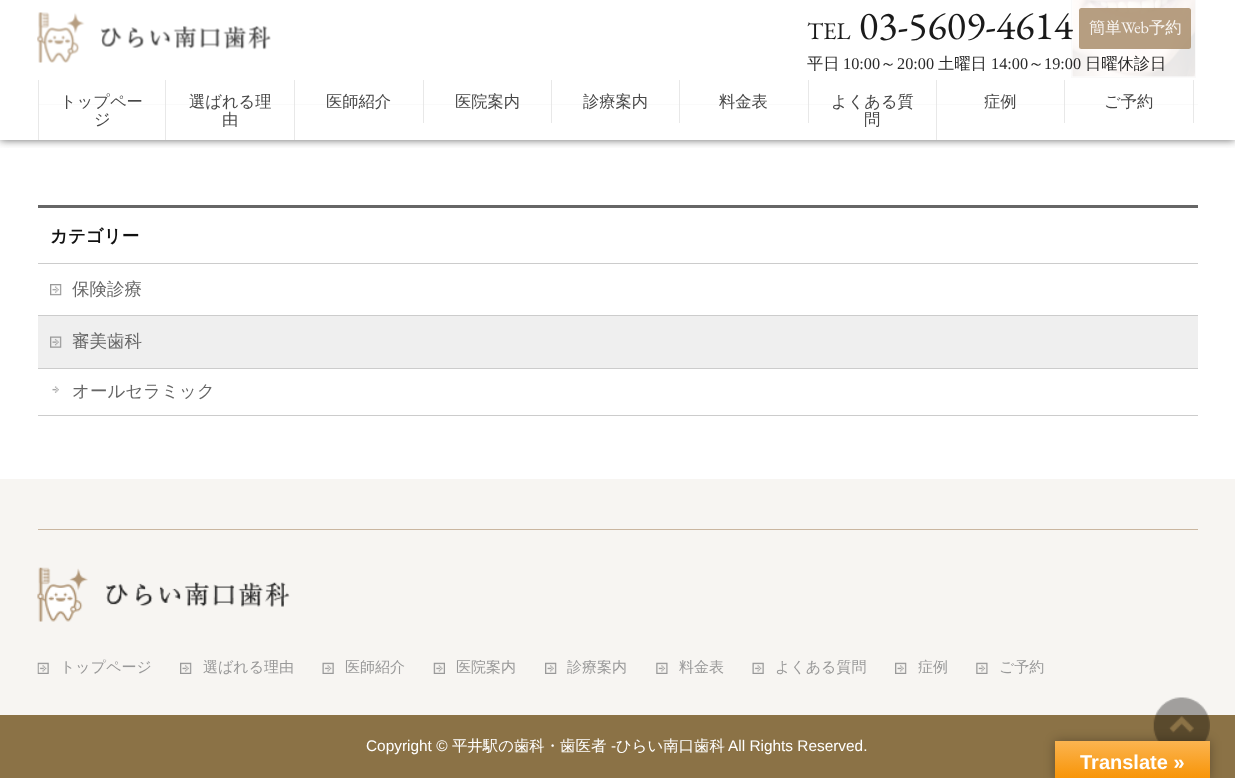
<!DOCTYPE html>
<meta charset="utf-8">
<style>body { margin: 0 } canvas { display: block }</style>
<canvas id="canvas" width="1235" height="778"></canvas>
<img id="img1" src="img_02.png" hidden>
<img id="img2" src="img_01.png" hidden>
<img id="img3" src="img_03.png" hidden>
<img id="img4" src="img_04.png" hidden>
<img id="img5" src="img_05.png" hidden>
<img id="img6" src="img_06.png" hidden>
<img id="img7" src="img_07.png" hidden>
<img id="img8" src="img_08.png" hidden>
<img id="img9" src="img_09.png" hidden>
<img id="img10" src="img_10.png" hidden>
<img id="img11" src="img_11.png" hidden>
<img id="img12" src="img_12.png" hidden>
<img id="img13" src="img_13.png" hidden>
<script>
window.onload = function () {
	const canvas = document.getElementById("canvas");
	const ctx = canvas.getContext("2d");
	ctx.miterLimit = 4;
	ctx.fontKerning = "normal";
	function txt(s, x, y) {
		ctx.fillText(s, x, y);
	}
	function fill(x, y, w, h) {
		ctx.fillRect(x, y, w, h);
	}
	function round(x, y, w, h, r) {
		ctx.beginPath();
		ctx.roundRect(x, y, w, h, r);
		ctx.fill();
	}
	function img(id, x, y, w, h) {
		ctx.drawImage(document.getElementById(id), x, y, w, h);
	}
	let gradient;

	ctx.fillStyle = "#FFFFFF";
	fill(0, 0, 1235, 778);
	ctx.fillStyle = "#E8E8E8";
	fill(1193, 80, 1, 43);
	fill(1064, 80, 1, 43);
	fill(936, 80, 1, 60);
	fill(808, 80, 1, 43);
	fill(679, 80, 1, 43);
	fill(551, 80, 1, 43);
	fill(423, 80, 1, 43);
	fill(294, 80, 1, 60);
	fill(165, 80, 1, 60);
	fill(38, 80, 1, 60);
	ctx.fillStyle = "#FAFAFA";
	fill(38, 104, 1160, 1);
	ctx.fillStyle = "#E7E7E7";
	fill(1193, 104, 1, 1);
	fill(1064, 104, 1, 1);
	fill(936, 104, 1, 1);
	fill(808, 104, 1, 1);
	fill(679, 104, 1, 1);
	fill(551, 104, 1, 1);
	fill(423, 104, 1, 1);
	fill(294, 104, 1, 1);
	fill(165, 104, 1, 1);
	fill(38, 104, 1, 1);
	ctx.strokeStyle = "#FAFAFA";
	ctx.strokeRect(1071.5, -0.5, 124, 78);
	img("img1", 1072, 0, 123, 77);
	ctx.save();
	ctx.beginPath();
	ctx.rect(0, 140, 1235, 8);
	ctx.clip();
	ctx.fillStyle = "#666666";
	ctx.filter = "blur(4px)";
	ctx.beginPath();
	ctx.rect(0, 0, 1235, 140);
	ctx.fill();
	ctx.filter = "none";
	ctx.restore();
	img("img2", 37, 12, 234, 51);
	ctx.fillStyle = "rgba(174, 147, 115, 0.9)";
	round(1079, 8, 112, 41, 2.5);
	ctx.fillStyle = "#666666";
	fill(38, 205, 1160, 3);
	ctx.fillStyle = "#CCCCCC";
	fill(38, 263, 1160, 1);
	fill(38, 315, 1160, 1);
	img("img3", 50, 284, 12, 12);
	fill(38, 415, 1160, 1);
	ctx.fillStyle = "#EFEFEF";
	fill(38, 316, 1160, 52);
	img("img4", 50, 336, 12, 12);
	ctx.fillStyle = "#CCCCCC";
	fill(38, 368, 1160, 1);
	img("img5", 52, 386, 7, 7);
	ctx.fillStyle = "#F7F5F2";
	fill(0, 479, 1235, 236);
	ctx.fillStyle = "#CAB6A0";
	fill(38, 529, 1160, 1);
	img("img6", 37, 567, 253, 55);
	img("img7", 37, 662, 12, 12);
	img("img8", 180, 662, 12, 12);
	img("img9", 322, 662, 12, 12);
	img("img10", 433, 662, 12, 12);
	img("img11", 545, 662, 12, 12);
	img("img12", 656, 662, 12, 12);
	img("img9", 752, 662, 12, 12);
	img("img8", 895, 662, 12, 12);
	img("img12", 976, 662, 12, 12);
	ctx.fillStyle = "#8B7246";
	fill(0, 715, 1235, 63);
	img("img13", 1153, 697, 57, 44);
	ctx.fillStyle = "rgba(0, 0, 0, 0.3)";
	ctx.filter = "blur(5.5px)";
	ctx.beginPath();
	ctx.rect(1055, 741, 155, 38);
	ctx.fill();
	ctx.filter = "none";
	gradient = ctx.createLinearGradient(1133, 741, 1133, 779);
	gradient.addColorStop(0, "#FBB450");
	gradient.addColorStop(1, "#F89406");
	ctx.fillStyle = gradient;
	fill(1055, 741, 155, 37);
	ctx.font = "24px EB Garamond";
	ctx.fillStyle = "#1A1A1A";
	txt("TEL", 807, 39);
	ctx.font = "40px EB Garamond";
	txt("03-5609-4614", 859, 39);
	ctx.font = "500 16.25px WenQuanYi Zen Hei";
	ctx.fillStyle = "#F8F5F2";
	txt("簡単", 1089, 33);
	ctx.font = "16.25px EB Garamond";
	txt("Web", 1121, 33);
	ctx.font = "500 16.25px WenQuanYi Zen Hei";
	txt("予約", 1149, 33);
	ctx.fillStyle = "#292929";
	txt("平日", 807, 69);
	ctx.font = "16.25px Liberation Serif";
	txt("10:00", 843, 69);
	ctx.font = "500 16.25px WenQuanYi Zen Hei";
	txt("～", 880, 69);
	ctx.font = "16.25px Liberation Serif";
	txt("20:00", 897, 69);
	ctx.font = "500 16.25px WenQuanYi Zen Hei";
	txt("土曜日", 938, 69);
	ctx.font = "16.25px Liberation Serif";
	txt("14:00", 991, 69);
	ctx.font = "500 16.25px WenQuanYi Zen Hei";
	txt("～", 1028, 69);
	ctx.font = "16.25px Liberation Serif";
	txt("19:00", 1044, 69);
	ctx.font = "500 16.25px WenQuanYi Zen Hei";
	txt("日曜休診日", 1085, 69);
	ctx.fillStyle = "#474747";
	txt("トップペー", 60, 107);
	txt("ジ", 94, 125);
	txt("選ばれる理", 189, 107);
	txt("由", 222, 125);
	txt("医師紹介", 326, 107);
	txt("医院案内", 455, 107);
	txt("診療案内", 583, 107);
	txt("料金表", 719, 107);
	txt("よくある質", 831, 107);
	txt("問", 864, 125);
	txt("症例", 984, 107);
	txt("ご予約", 1104, 107);
	ctx.font = "bold 17.5px WenQuanYi Zen Hei";
	ctx.fillStyle = "#111111";
	txt("カテゴリー", 50, 242);
	ctx.font = "500 17.5px WenQuanYi Zen Hei";
	ctx.fillStyle = "#666666";
	txt("保険診療", 72, 295);
	txt("審美歯科", 72, 347);
	txt("オールセラミック", 72, 397);
	ctx.font = "500 15px WenQuanYi Zen Hei";
	ctx.fillStyle = "#999999";
	txt("トップページ", 60, 672);
	ctx.save();
	ctx.beginPath();
	ctx.rect(180, 660, 139, 23);
	ctx.clip();
	txt("選ばれる理由", 203, 672);
	ctx.restore();
	txt("医師紹介", 345, 672);
	ctx.save();
	ctx.beginPath();
	ctx.rect(434, 660, 107, 23);
	ctx.clip();
	txt("医院案内", 456, 672);
	ctx.restore();
	ctx.save();
	ctx.beginPath();
	ctx.rect(545, 660, 108, 23);
	ctx.clip();
	txt("診療案内", 567, 672);
	ctx.restore();
	ctx.save();
	ctx.beginPath();
	ctx.rect(656, 660, 93, 23);
	ctx.clip();
	txt("料金表", 679, 672);
	ctx.restore();
	ctx.save();
	ctx.beginPath();
	ctx.rect(753, 660, 138, 23);
	ctx.clip();
	txt("よくある質問", 775, 672);
	ctx.restore();
	txt("症例", 918, 672);
	txt("ご予約", 999, 672);
	ctx.font = "15.4px Liberation Sans";
	ctx.fillStyle = "#FFFFFF";
	txt("Copyright ©", 366, 751);
	ctx.font = "500 15.4px WenQuanYi Zen Hei";
	txt("平井駅の歯科・歯医者", 452, 751);
	ctx.font = "15.4px Liberation Sans";
	txt("-", 611, 751);
	ctx.font = "500 15.4px WenQuanYi Zen Hei";
	txt("ひらい南口歯科", 616, 751);
	ctx.font = "15.4px Liberation Sans";
	txt("All Rights Reserved.", 728, 751);
	ctx.font = "bold 20px Liberation Sans";
	txt("Translate »", 1080, 769);
};
</script>
